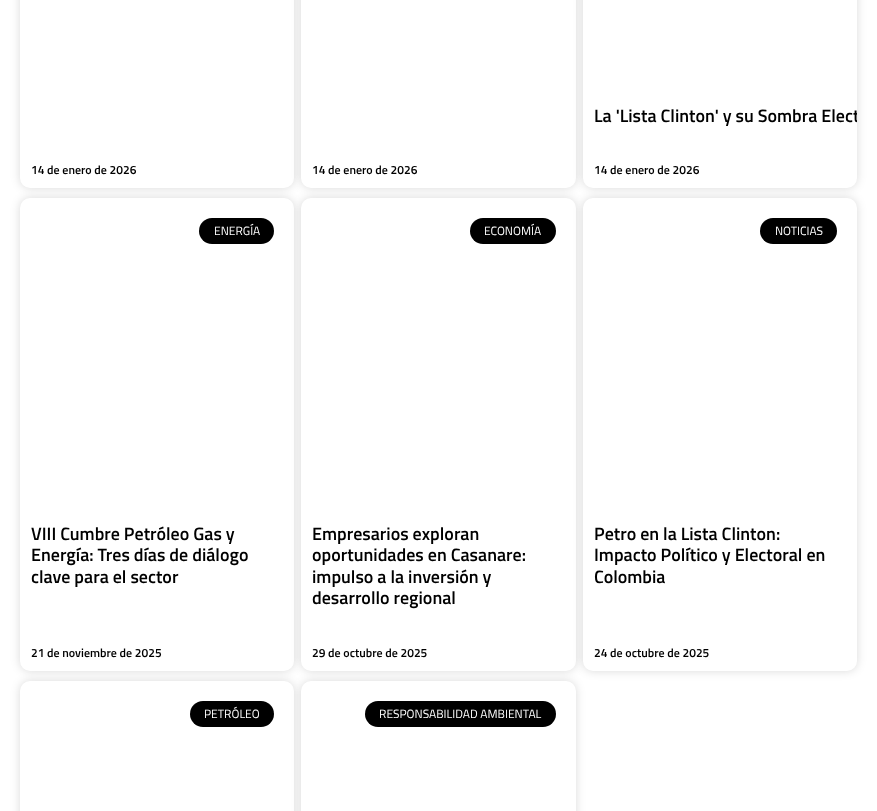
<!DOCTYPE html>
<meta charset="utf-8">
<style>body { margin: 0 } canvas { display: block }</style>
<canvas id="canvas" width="877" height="811"></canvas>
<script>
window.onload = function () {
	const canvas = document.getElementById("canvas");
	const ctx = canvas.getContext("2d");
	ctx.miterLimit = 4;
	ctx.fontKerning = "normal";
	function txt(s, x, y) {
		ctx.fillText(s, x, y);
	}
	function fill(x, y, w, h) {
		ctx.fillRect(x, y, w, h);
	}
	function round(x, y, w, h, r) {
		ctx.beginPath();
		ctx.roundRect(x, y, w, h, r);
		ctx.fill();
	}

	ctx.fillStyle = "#FFFFFF";
	fill(0, 0, 877, 811);
	ctx.fillStyle = "rgba(0, 0, 0, 0.15)";
	ctx.filter = "blur(5px)";
	ctx.beginPath();
	ctx.roundRect(20, -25, 274, 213, 10);
	ctx.fill();
	ctx.filter = "none";
	ctx.fillStyle = "#FFFFFF";
	round(20, -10, 274, 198, 10);
	ctx.fillStyle = "rgba(0, 0, 0, 0.15)";
	ctx.filter = "blur(5px)";
	ctx.beginPath();
	ctx.roundRect(301, -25, 275, 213, 10);
	ctx.fill();
	ctx.filter = "none";
	ctx.fillStyle = "#FFFFFF";
	round(301, -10, 275, 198, 10);
	ctx.fillStyle = "rgba(0, 0, 0, 0.15)";
	ctx.filter = "blur(5px)";
	ctx.beginPath();
	ctx.roundRect(583, -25, 274, 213, 10);
	ctx.fill();
	ctx.filter = "none";
	ctx.fillStyle = "#FFFFFF";
	round(583, -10, 274, 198, 10);
	ctx.fillStyle = "rgba(0, 0, 0, 0.15)";
	ctx.filter = "blur(5px)";
	ctx.beginPath();
	ctx.roundRect(20, 198, 274, 473, 10);
	ctx.fill();
	ctx.filter = "none";
	ctx.fillStyle = "#FFFFFF";
	round(20, 198, 274, 473, 10);
	ctx.fillStyle = "#000000";
	round(199, 218, 75, 26, 13);
	ctx.fillStyle = "rgba(0, 0, 0, 0.15)";
	ctx.filter = "blur(5px)";
	ctx.beginPath();
	ctx.roundRect(301, 198, 275, 473, 10);
	ctx.fill();
	ctx.filter = "none";
	ctx.fillStyle = "#FFFFFF";
	round(301, 198, 275, 473, 10);
	ctx.fillStyle = "#000000";
	round(470, 218, 86, 26, 13);
	ctx.fillStyle = "rgba(0, 0, 0, 0.15)";
	ctx.filter = "blur(5px)";
	ctx.beginPath();
	ctx.roundRect(583, 198, 274, 473, 10);
	ctx.fill();
	ctx.filter = "none";
	ctx.fillStyle = "#FFFFFF";
	round(583, 198, 274, 473, 10);
	ctx.fillStyle = "#000000";
	round(760, 218, 77, 26, 13);
	ctx.fillStyle = "rgba(0, 0, 0, 0.15)";
	ctx.filter = "blur(5px)";
	ctx.beginPath();
	ctx.roundRect(20, 681, 274, 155, 10);
	ctx.fill();
	ctx.filter = "none";
	ctx.fillStyle = "#FFFFFF";
	round(20, 681, 274, 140, 10);
	ctx.fillStyle = "#000000";
	round(190, 701, 84, 26, 13);
	ctx.fillStyle = "rgba(0, 0, 0, 0.15)";
	ctx.filter = "blur(5px)";
	ctx.beginPath();
	ctx.roundRect(301, 681, 275, 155, 10);
	ctx.fill();
	ctx.filter = "none";
	ctx.fillStyle = "#FFFFFF";
	round(301, 681, 275, 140, 10);
	ctx.fillStyle = "#000000";
	round(365, 701, 191, 26, 13);
	ctx.font = "600 12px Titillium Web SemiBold";
	txt("14 de enero de 2026", 31, 174);
	txt("14 de enero de 2026", 312, 174);
	ctx.save();
	ctx.beginPath();
	ctx.roundRect(583, -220, 274, 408, 10);
	ctx.clip();
	ctx.font = "600 18px Titillium Web SemiBold";
	txt("La 'Lista Clinton' y su Sombra Elect", 594, 122);
	ctx.restore();
	txt("14 de enero de 2026", 594, 174);
	ctx.font = "12px Titillium Web";
	ctx.fillStyle = "#FFFFFF";
	txt("ENERGÍA", 214, 235);
	ctx.font = "600 18px Titillium Web SemiBold";
	ctx.fillStyle = "#000000";
	txt("VIII Cumbre Petróleo Gas y", 31, 540);
	txt("Energía: Tres días de diálogo", 31, 561);
	txt("clave para el sector", 31, 583);
	ctx.font = "600 12px Titillium Web SemiBold";
	txt("21 de noviembre de 2025", 31, 657);
	ctx.font = "12px Titillium Web";
	ctx.fillStyle = "#FFFFFF";
	txt("ECONOMÍA", 484, 235);
	ctx.font = "600 18px Titillium Web SemiBold";
	ctx.fillStyle = "#000000";
	txt("Empresarios exploran", 312, 540);
	txt("oportunidades en Casanare:", 312, 561);
	txt("impulso a la inversión y", 312, 583);
	txt("desarrollo regional", 312, 604);
	ctx.font = "600 12px Titillium Web SemiBold";
	txt("29 de octubre de 2025", 312, 657);
	ctx.font = "12px Titillium Web";
	ctx.fillStyle = "#FFFFFF";
	txt("NOTICIAS", 775, 235);
	ctx.font = "600 18px Titillium Web SemiBold";
	ctx.fillStyle = "#000000";
	txt("Petro en la Lista Clinton:", 594, 540);
	txt("Impacto Político y Electoral en", 594, 561);
	txt("Colombia", 594, 583);
	ctx.font = "600 12px Titillium Web SemiBold";
	txt("24 de octubre de 2025", 594, 657);
	ctx.font = "12px Titillium Web";
	ctx.fillStyle = "#FFFFFF";
	txt("PETRÓLEO", 204, 718);
	txt("RESPONSABILIDAD AMBIENTAL", 379, 718);
};
</script>
